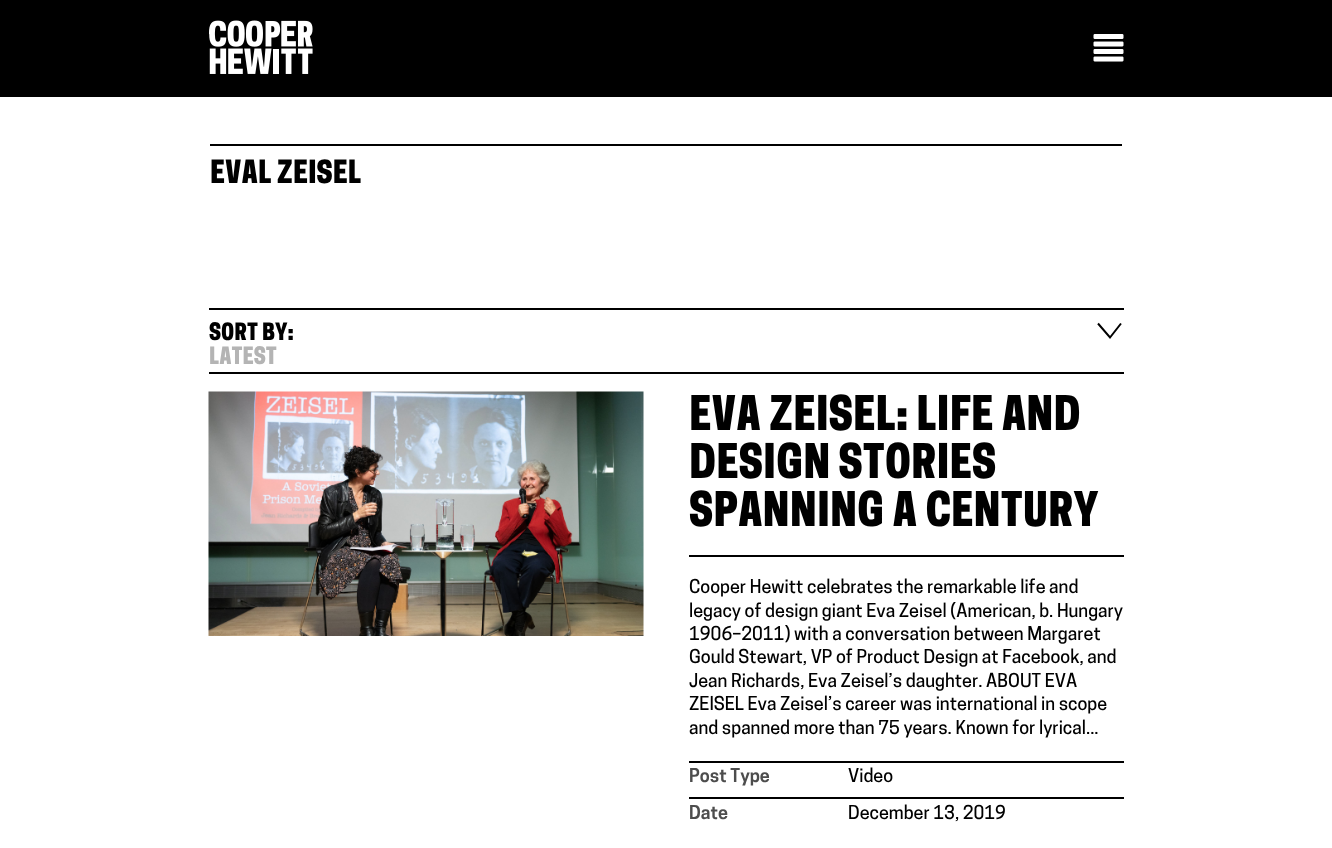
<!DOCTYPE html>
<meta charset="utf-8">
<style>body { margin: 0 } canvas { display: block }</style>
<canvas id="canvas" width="1332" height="848"></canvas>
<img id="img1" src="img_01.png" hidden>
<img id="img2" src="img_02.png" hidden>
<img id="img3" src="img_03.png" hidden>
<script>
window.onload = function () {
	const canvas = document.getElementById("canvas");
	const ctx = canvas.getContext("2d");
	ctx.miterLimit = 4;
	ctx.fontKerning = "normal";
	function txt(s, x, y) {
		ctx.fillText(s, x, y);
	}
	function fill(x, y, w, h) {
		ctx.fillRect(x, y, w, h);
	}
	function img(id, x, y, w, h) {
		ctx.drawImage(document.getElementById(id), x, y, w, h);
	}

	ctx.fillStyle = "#FFFFFF";
	fill(0, 0, 1332, 848);
	ctx.fillStyle = "#000000";
	fill(0, 0, 1332, 97);
	img("img1", 209, 20, 104, 54);
	img("img2", 1093, 34, 31, 28);
	fill(210, 144, 912, 2);
	fill(209, 308, 915, 2);
	ctx.beginPath();
	ctx.moveTo(1121, 323.5);
	ctx.lineTo(1110, 337.5);
	ctx.lineTo(1098, 323.5);
	ctx.strokeStyle = "#000000";
	ctx.lineWidth = 2;
	ctx.stroke();
	fill(209, 372, 915, 2);
	img("img3", 208, 391, 436, 245);
	fill(689, 555, 435, 2);
	fill(689, 761, 435, 2);
	fill(689, 797, 435, 2);
	ctx.font = "600 30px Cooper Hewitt";
	txt("EVAL ZEISEL", 210, 183);
	ctx.font = "600 22.5px Cooper Hewitt";
	txt("SORT BY:", 209, 340);
	ctx.fillStyle = "#B4B4B4";
	txt("LATEST", 209, 364);
	ctx.font = "600 45px Cooper Hewitt";
	ctx.fillStyle = "#000000";
	txt("EVA ZEISEL: LIFE AND", 689, 430);
	txt("DESIGN STORIES", 689, 478);
	txt("SPANNING A CENTURY", 689, 526);
	ctx.font = "500 18px Cooper Hewitt";
	txt("Cooper Hewitt celebrates the remarkable life and", 689, 593);
	txt("legacy of design giant Eva Zeisel (American, b. Hungary", 689, 617);
	txt("1906–2011) with a conversation between Margaret", 689, 640);
	txt("Gould Stewart, VP of Product Design at Facebook, and", 689, 663);
	txt("Jean Richards, Eva Zeisel’s daughter. ABOUT EVA", 689, 687);
	txt("ZEISEL Eva Zeisel’s career was international in scope", 689, 710);
	txt("and spanned more than 75 years. Known for lyrical...", 689, 734);
	ctx.font = "600 18px 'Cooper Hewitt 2'";
	ctx.fillStyle = "#4D4D4D";
	txt("Post Type", 689, 782);
	ctx.font = "500 18px Cooper Hewitt";
	ctx.fillStyle = "#000000";
	txt("Video", 848, 782);
	ctx.font = "600 18px 'Cooper Hewitt 2'";
	ctx.fillStyle = "#4D4D4D";
	txt("Date", 689, 819);
	ctx.font = "500 18px Cooper Hewitt";
	ctx.fillStyle = "#000000";
	txt("December 13, 2019", 848, 819);
};
</script>
